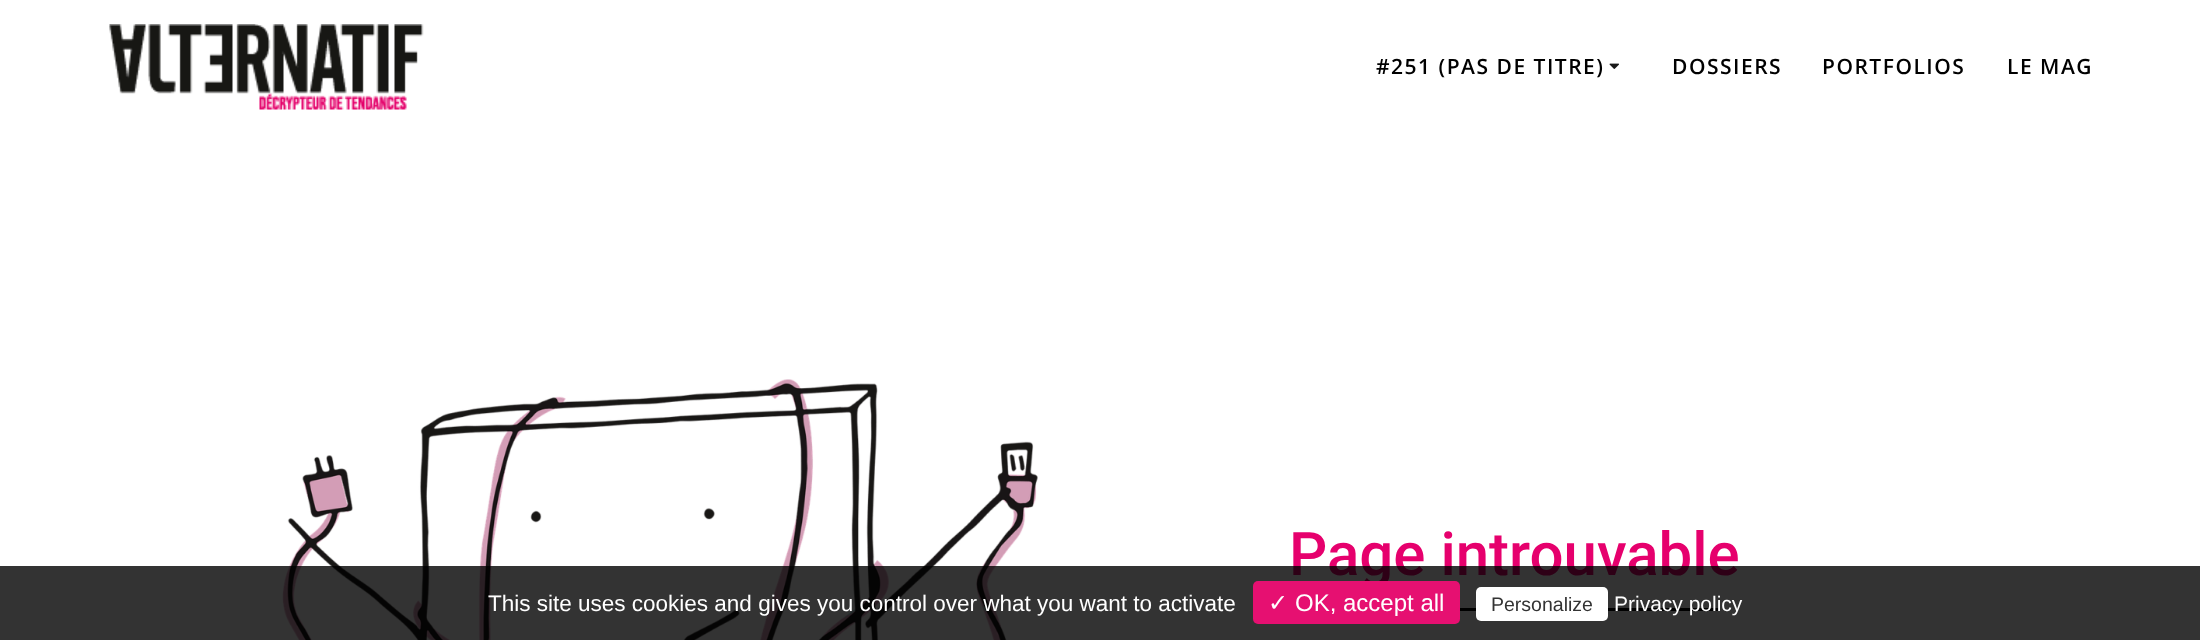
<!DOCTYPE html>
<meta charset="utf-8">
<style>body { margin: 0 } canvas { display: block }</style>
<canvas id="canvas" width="2200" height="640"></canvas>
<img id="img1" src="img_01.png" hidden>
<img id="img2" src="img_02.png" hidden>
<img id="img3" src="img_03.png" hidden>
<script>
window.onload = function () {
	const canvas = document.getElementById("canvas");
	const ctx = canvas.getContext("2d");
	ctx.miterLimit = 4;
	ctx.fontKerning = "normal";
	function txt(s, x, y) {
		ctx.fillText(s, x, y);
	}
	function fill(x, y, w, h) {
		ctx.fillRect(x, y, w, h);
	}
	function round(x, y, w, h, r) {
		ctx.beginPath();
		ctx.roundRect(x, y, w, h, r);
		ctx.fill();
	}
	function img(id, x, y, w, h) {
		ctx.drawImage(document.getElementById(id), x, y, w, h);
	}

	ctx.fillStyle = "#FFFFFF";
	fill(0, 0, 2200, 640);
	img("img1", 109, 24, 315, 86);
	img("img2", 1609, 63, 10, 6);
	img("img3", 282, 379, 756, 261);
	ctx.fillStyle = "#000000";
	fill(1460, 608, 259, 3);
	ctx.letterSpacing = "1.5px";
	ctx.font = "600 21px Open Sans";
	txt("#251 (PAS DE TITRE)", 1376, 74);
	txt("DOSSIERS", 1672, 74);
	txt("PORTFOLIOS", 1822, 74);
	txt("LE MAG", 2007, 74);
	ctx.letterSpacing = "0px";
	ctx.font = "500 60px Roboto";
	ctx.fillStyle = "#E6006D";
	txt("Page introuvable", 1289, 575);
	ctx.fillStyle = "rgba(0, 0, 0, 0.8)";
	fill(0, 566, 2200, 74);
	ctx.font = "22.5px Liberation Sans";
	ctx.fillStyle = "#FFFFFF";
	txt("This site uses cookies and gives you control over what you want to activate", 488, 611);
	ctx.fillStyle = "#E61071";
	round(1253, 581, 207, 43, 5);
	ctx.font = "24px DejaVu Sans";
	ctx.fillStyle = "#FFFFFF";
	txt("✓", 1268, 611);
	ctx.font = "24px Liberation Sans";
	txt("OK, accept all", 1295, 611);
	round(1476, 587, 132, 34, 5);
	ctx.font = "19.5px Liberation Sans";
	ctx.fillStyle = "#333333";
	txt("Personalize", 1491, 611);
	ctx.font = "21px Liberation Sans";
	ctx.fillStyle = "#FFFFFF";
	txt("Privacy policy", 1614, 611);
};
</script>
